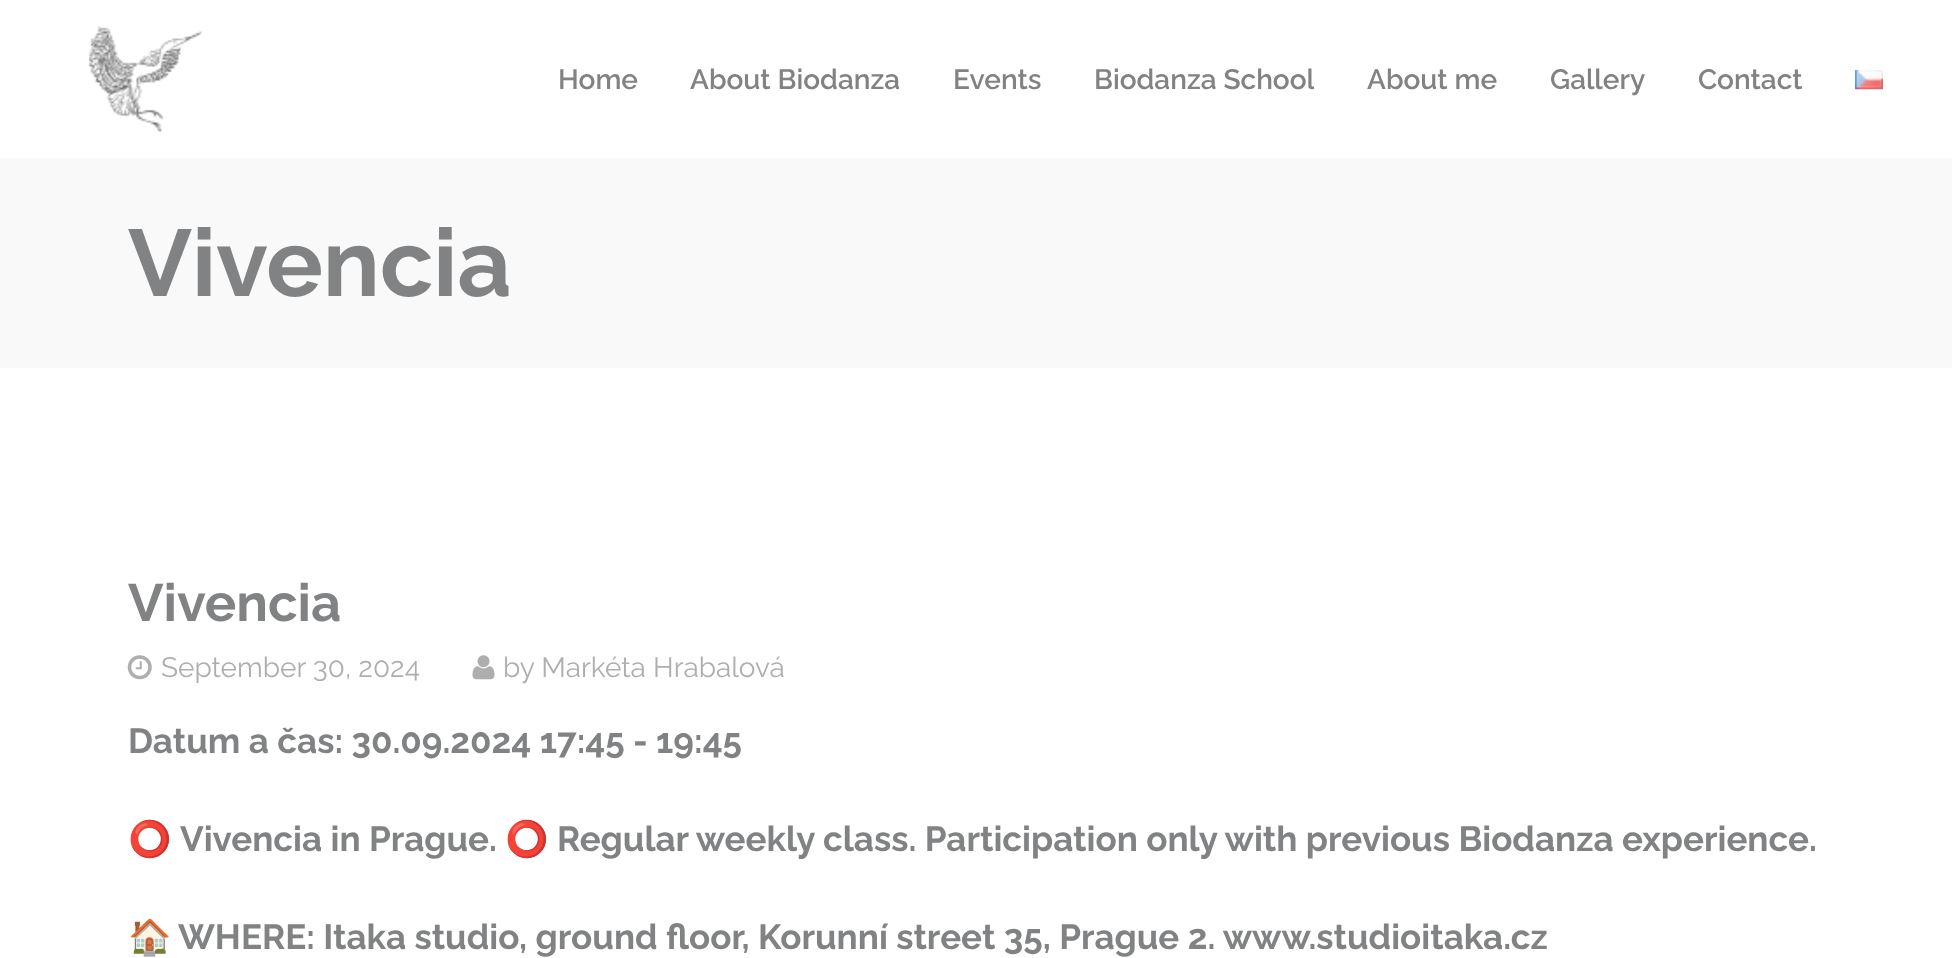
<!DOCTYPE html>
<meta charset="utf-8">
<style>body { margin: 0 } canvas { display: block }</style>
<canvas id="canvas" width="1952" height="958"></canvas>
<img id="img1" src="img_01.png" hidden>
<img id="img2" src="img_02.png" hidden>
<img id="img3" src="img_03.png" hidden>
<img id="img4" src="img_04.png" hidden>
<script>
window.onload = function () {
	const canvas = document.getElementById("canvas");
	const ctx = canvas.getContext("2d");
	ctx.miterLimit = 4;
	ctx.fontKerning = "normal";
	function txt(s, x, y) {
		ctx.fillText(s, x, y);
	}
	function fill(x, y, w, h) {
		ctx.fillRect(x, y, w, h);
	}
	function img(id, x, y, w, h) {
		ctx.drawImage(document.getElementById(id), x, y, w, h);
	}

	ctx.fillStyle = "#FFFFFF";
	fill(0, 0, 1952, 958);
	img("img1", 88, 26, 114, 106);
	img("img2", 1855, 70, 28, 20);
	ctx.fillStyle = "#F9F9F9";
	fill(0, 158, 1952, 210);
	img("img3", 127, 655, 25, 25);
	img("img4", 472, 655, 23, 25);
	ctx.font = "600 28px Raleway";
	ctx.fillStyle = "#818283";
	txt("Home", 558, 89);
	txt("About Biodanza", 690, 89);
	txt("Events", 953, 89);
	ctx.save();
	ctx.beginPath();
	ctx.rect(1094, 63, 220, 35);
	ctx.clip();
	txt("Biodanza School", 1094, 89);
	ctx.restore();
	txt("About me", 1367, 89);
	txt("Gallery", 1550, 89);
	txt("Contact", 1698, 89);
	ctx.font = "bold 94.5px Raleway";
	txt("Vivencia", 128, 296);
	ctx.font = "bold 52.5px Raleway";
	txt("Vivencia", 128, 621);
	ctx.font = "28px Raleway";
	ctx.fillStyle = "#AEAEAE";
	txt("September 30, 2024", 161, 677);
	txt("by Markéta Hrabalová", 503, 677);
	ctx.font = "bold 35px Raleway";
	ctx.fillStyle = "#818283";
	txt("Datum a čas: 30.09.2024 17:45 - 19:45", 128, 753);
	ctx.font = "bold 35px Noto Color Emoji";
	txt("⭕️", 128, 851);
	ctx.font = "bold 35px Raleway";
	txt("Vivencia in Prague.", 180, 851);
	ctx.font = "bold 35px Noto Color Emoji";
	txt("⭕️", 505, 851);
	ctx.font = "bold 35px Raleway";
	txt("Regular weekly class. Participation only with previous Biodanza experience.", 557, 851);
	ctx.font = "bold 35px Noto Color Emoji";
	txt("🏠", 128, 949);
	ctx.font = "bold 35px Raleway";
	txt("WHERE: Itaka studio, ground floor, Korunní street 35, Prague 2. www.studioitaka.cz", 178, 949);
};
</script>
